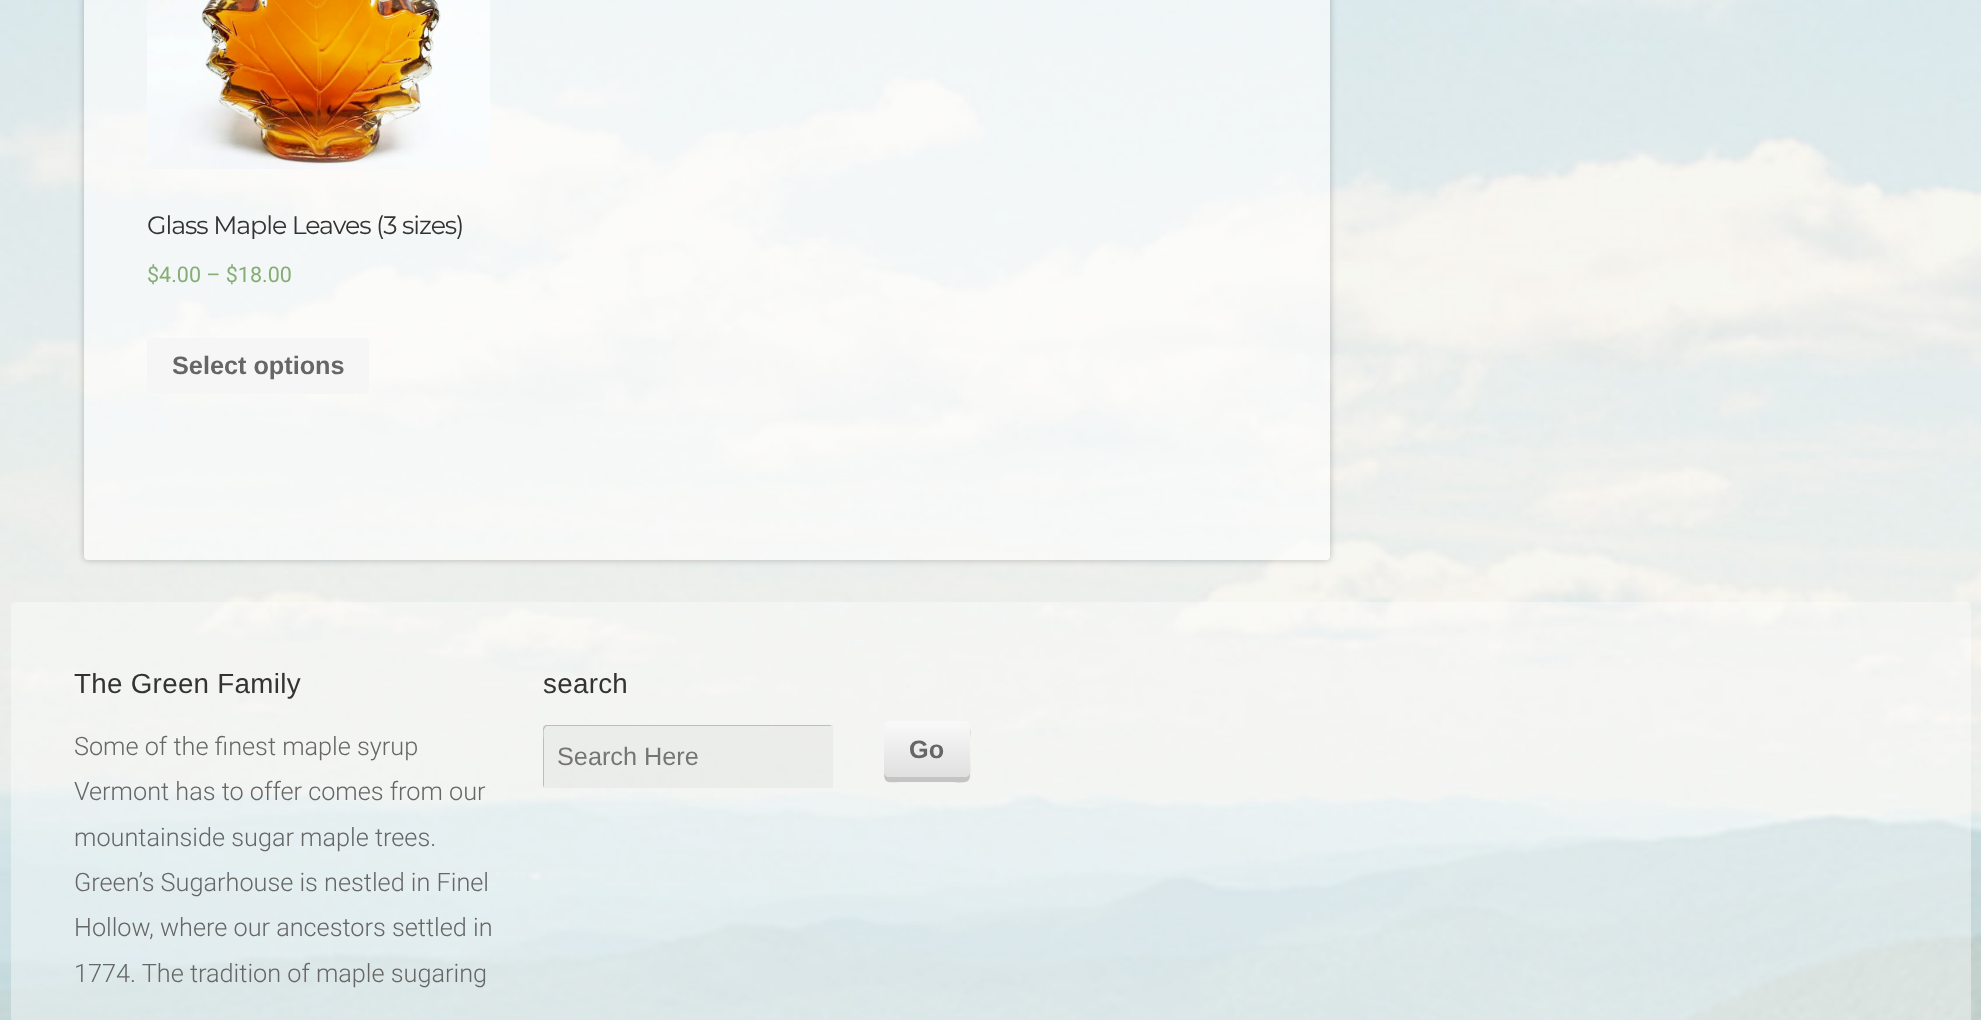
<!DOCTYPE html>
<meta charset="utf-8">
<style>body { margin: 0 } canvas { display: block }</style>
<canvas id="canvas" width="1981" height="1020"></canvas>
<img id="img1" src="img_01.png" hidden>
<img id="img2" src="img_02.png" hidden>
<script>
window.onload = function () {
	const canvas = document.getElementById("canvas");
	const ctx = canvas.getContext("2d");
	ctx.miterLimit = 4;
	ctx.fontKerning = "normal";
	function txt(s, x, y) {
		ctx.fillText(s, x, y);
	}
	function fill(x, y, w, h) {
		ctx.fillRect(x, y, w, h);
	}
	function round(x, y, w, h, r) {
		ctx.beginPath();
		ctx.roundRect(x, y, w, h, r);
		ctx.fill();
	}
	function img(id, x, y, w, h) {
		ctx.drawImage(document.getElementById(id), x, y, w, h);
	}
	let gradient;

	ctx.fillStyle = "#FFFFFF";
	fill(0, 0, 1981, 1020);
	img("img1", 0, 0, 1981, 1020);
	ctx.save();
	ctx.beginPath();
	ctx.moveTo(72, 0);
	ctx.lineTo(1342, 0);
	ctx.lineTo(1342, 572);
	ctx.lineTo(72, 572);
	ctx.closePath();
	ctx.moveTo(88, -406);
	ctx.lineTo(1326, -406);
	ctx.bezierCurveTo(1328, -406, 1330, -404, 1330, -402);
	ctx.lineTo(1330, 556);
	ctx.bezierCurveTo(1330, 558, 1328, 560, 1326, 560);
	ctx.lineTo(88, 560);
	ctx.bezierCurveTo(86, 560, 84, 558, 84, 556);
	ctx.lineTo(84, -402);
	ctx.bezierCurveTo(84, -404, 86, -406, 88, -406);
	ctx.closePath();
	ctx.clip("evenodd");
	ctx.fillStyle = "rgba(0, 0, 0, 0.24)";
	ctx.filter = "blur(3.5px)";
	ctx.beginPath();
	ctx.roundRect(84, -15, 1246, 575, 4);
	ctx.fill();
	ctx.filter = "none";
	ctx.restore();
	ctx.fillStyle = "rgba(255, 255, 255, 0.6)";
	round(84, -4, 1246, 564, 4);
	img("img2", 147, 0, 343, 169);
	ctx.fillStyle = "#F7F6F7";
	round(147, 338, 222, 56, 5);
	ctx.fillStyle = "rgba(255, 255, 255, 0.4)";
	ctx.beginPath();
	ctx.moveTo(15, 602);
	ctx.lineTo(1967, 602);
	ctx.bezierCurveTo(1969, 602, 1971, 604, 1971, 606);
	ctx.lineTo(1971, 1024);
	ctx.lineTo(11, 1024);
	ctx.lineTo(11, 606);
	ctx.bezierCurveTo(11, 604, 13, 602, 15, 602);
	ctx.closePath();
	ctx.fill();
	ctx.fillStyle = "rgba(0, 0, 0, 0.03)";
	fill(543, 725, 290, 63);
	ctx.fillStyle = "rgba(0, 0, 0, 0.2)";
	ctx.beginPath();
	ctx.moveTo(548, 726);
	ctx.lineTo(832, 726);
	ctx.bezierCurveTo(831, 725, 830, 725, 829, 725);
	ctx.lineTo(547, 725);
	ctx.bezierCurveTo(545, 725, 543, 727, 543, 729);
	ctx.lineTo(543, 784);
	ctx.bezierCurveTo(543, 785, 543, 786, 544, 787);
	ctx.lineTo(544, 739);
	ctx.bezierCurveTo(544, 737, 542, 726, 548, 726);
	ctx.closePath();
	ctx.fill();
	ctx.fillStyle = "#C3C4C3";
	ctx.beginPath();
	ctx.moveTo(884, 773);
	ctx.bezierCurveTo(884, 785, 890, 782, 902, 782);
	ctx.lineTo(940, 782);
	ctx.bezierCurveTo(975, 782, 970, 788, 970, 754);
	ctx.lineTo(970, 739);
	ctx.bezierCurveTo(970, 737, 971, 731, 970, 729);
	ctx.lineTo(970, 772);
	ctx.bezierCurveTo(970, 775, 967, 777, 964, 777);
	ctx.lineTo(889, 777);
	ctx.bezierCurveTo(887, 777, 885, 775, 884, 773);
	ctx.closePath();
	ctx.fill();
	ctx.fillStyle = "#F9F9F9";
	round(884, 721, 86, 56, 5);
	gradient = ctx.createLinearGradient(927, 721, 927, 777);
	gradient.addColorStop(0, "rgba(0, 0, 0, 0)");
	gradient.addColorStop(1, "rgba(0, 0, 0, 0.1)");
	ctx.fillStyle = gradient;
	round(884, 721, 86, 56, 5);
	ctx.letterSpacing = "-1.05px";
	ctx.font = "25.25px Montserrat";
	ctx.fillStyle = "#333333";
	txt("Glass Maple Leaves (3 sizes)", 147, 234);
	ctx.letterSpacing = "0px";
	ctx.font = "21.5px Roboto";
	ctx.fillStyle = "#85AD74";
	txt("$4.00 – $18.00", 147, 282);
	ctx.font = "bold 25.25px Liberation Sans";
	ctx.fillStyle = "#666666";
	txt("Select options", 172, 374);
	ctx.letterSpacing = "0.3px";
	ctx.font = "27.75px Liberation Sans";
	ctx.fillStyle = "#333333";
	txt("The Green Family", 74, 693);
	ctx.letterSpacing = "0px";
	ctx.font = "300 25.25px Roboto";
	ctx.fillStyle = "#666666";
	txt("Some of the finest maple syrup", 74, 755);
	txt("Vermont has to offer comes from our", 74, 800);
	txt("mountainside sugar maple trees.", 74, 846);
	txt("Green’s Sugarhouse is nestled in Finel", 74, 891);
	txt("Hollow, where our ancestors settled in", 74, 936);
	txt("1774. The tradition of maple sugaring", 74, 982);
	ctx.letterSpacing = "0.3px";
	ctx.font = "27.75px Liberation Sans";
	ctx.fillStyle = "#333333";
	txt("search", 543, 693);
	ctx.letterSpacing = "0px";
	ctx.font = "25.25px Liberation Sans";
	ctx.fillStyle = "#757575";
	txt("Search Here", 557, 765);
	ctx.font = "bold 25.25px Liberation Sans";
	ctx.fillStyle = "#666666";
	txt("Go", 909, 758);
};
</script>
